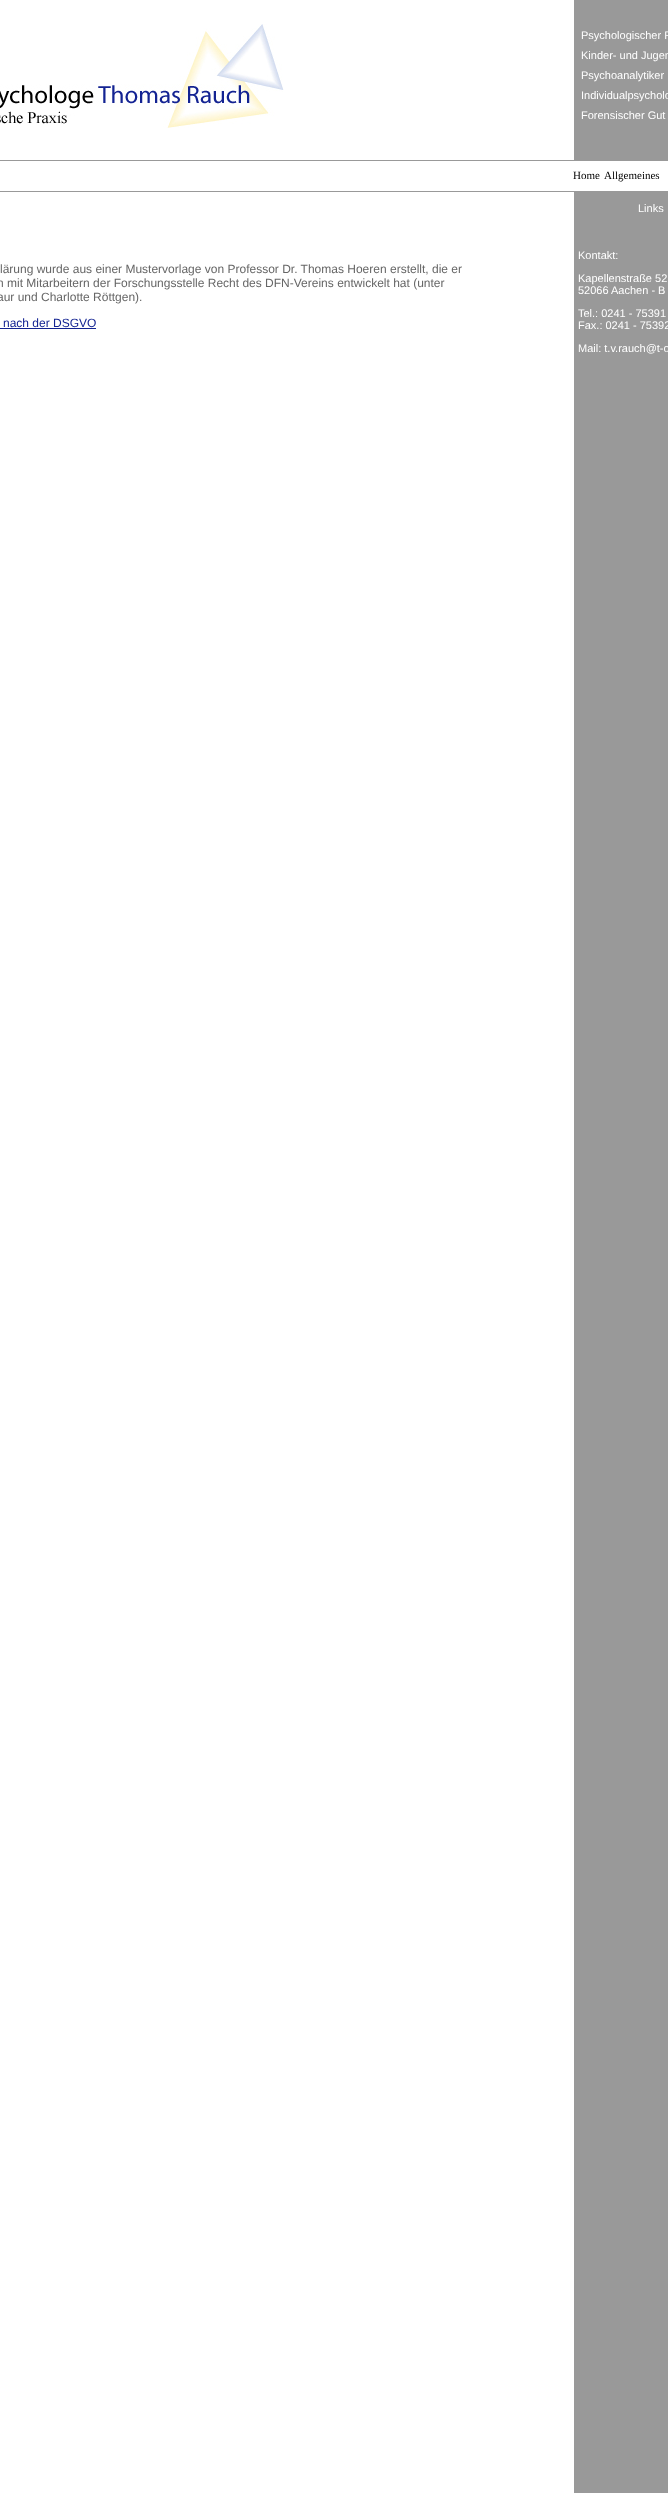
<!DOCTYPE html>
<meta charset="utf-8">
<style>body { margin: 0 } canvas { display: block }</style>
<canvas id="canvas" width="668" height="2493"></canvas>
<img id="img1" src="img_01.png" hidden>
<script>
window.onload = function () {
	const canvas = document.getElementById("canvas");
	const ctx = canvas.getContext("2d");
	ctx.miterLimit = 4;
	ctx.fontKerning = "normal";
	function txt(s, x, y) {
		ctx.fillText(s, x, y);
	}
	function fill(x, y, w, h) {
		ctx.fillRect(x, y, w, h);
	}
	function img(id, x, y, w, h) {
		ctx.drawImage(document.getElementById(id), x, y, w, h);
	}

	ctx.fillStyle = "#FFFFFF";
	fill(0, 0, 668, 2493);
	ctx.fillStyle = "#999999";
	fill(574, 0, 94, 2493);
	fill(0, 160, 574, 1);
	img("img1", 0, 24, 284, 104);
	ctx.fillStyle = "#132392";
	fill(0, 328, 96, 1);
	ctx.fillStyle = "#FFFFFF";
	fill(574, 161, 94, 30);
	ctx.fillStyle = "#999999";
	fill(0, 191, 574, 1);
	ctx.font = "12px Liberation Sans";
	ctx.fillStyle = "#666666";
	txt("lärung wurde aus einer Mustervorlage von Professor Dr. Thomas Hoeren erstellt, die er", 0, 273);
	txt("n mit Mitarbeitern der Forschungsstelle Recht des DFN-Vereins entwickelt hat (unter", -3, 287);
	txt("aur und Charlotte Röttgen).", -3, 301);
	ctx.fillStyle = "#132392";
	txt("nach der DSGVO", 3, 327);
	ctx.font = "11px Liberation Sans";
	ctx.fillStyle = "#FFFFFF";
	txt("Psychologischer P", 581, 39);
	txt("Kinder- und Jugen", 581, 59);
	txt("Psychoanalytiker", 581, 79);
	txt("Individualpsycholo", 581, 99);
	txt("Forensischer Gut", 581, 119);
	ctx.font = "11px Liberation Serif";
	ctx.fillStyle = "#000000";
	txt("Home", 573, 179);
	txt("Allgemeines", 604, 179);
	ctx.font = "11px Liberation Sans";
	ctx.fillStyle = "#FFFFFF";
	txt("Links", 638, 212);
	txt("Kontakt:", 578, 259);
	txt("Kapellenstraße 52", 578, 282);
	txt("52066 Aachen - B", 578, 294);
	txt("Tel.: 0241 - 75391", 578, 317);
	txt("Fax.: 0241 - 75392", 578, 329);
	txt("Mail: t.v.rauch@t-o", 578, 352);
};
</script>
